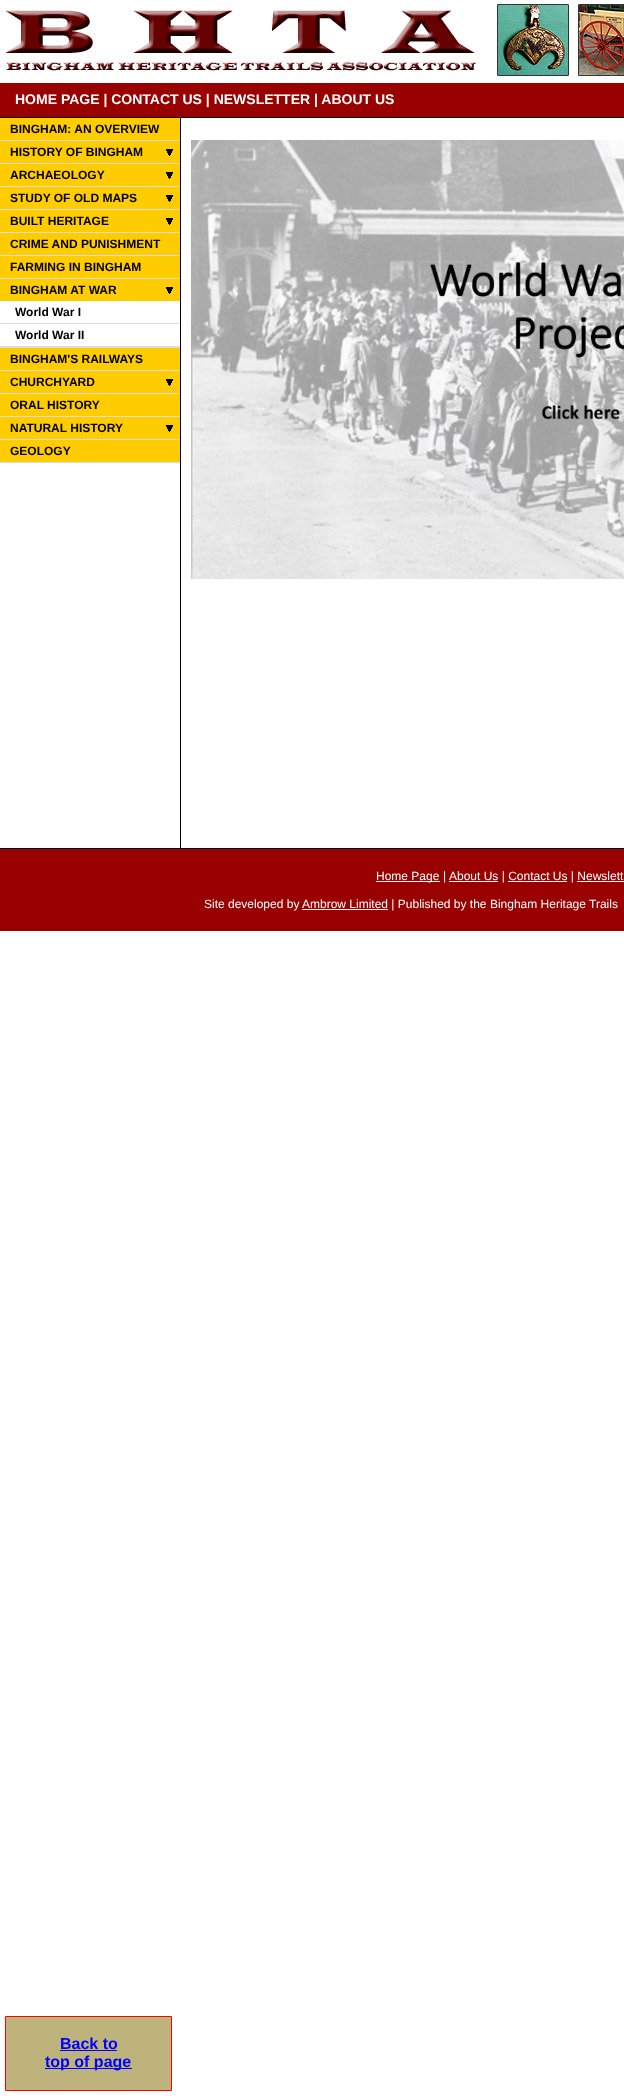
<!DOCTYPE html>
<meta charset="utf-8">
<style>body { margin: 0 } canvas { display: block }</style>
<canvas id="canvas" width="624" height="2096"></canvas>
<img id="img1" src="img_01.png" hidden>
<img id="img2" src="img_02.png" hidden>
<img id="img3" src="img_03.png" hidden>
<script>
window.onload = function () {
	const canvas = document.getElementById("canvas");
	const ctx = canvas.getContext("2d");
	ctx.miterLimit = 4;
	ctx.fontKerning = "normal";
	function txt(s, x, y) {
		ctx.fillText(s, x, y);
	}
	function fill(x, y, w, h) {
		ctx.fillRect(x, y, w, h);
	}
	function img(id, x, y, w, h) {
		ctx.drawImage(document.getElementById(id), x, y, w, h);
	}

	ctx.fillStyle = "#FFFFFF";
	fill(0, 0, 624, 2096);
	img("img1", 0, 0, 624, 80);
	ctx.fillStyle = "#990000";
	fill(0, 83, 624, 34);
	ctx.fillStyle = "#000000";
	fill(0, 117, 624, 1);
	ctx.fillStyle = "#DDDDDD";
	fill(0, 140, 180, 1);
	ctx.fillStyle = "#FFCC00";
	fill(0, 118, 180, 22);
	ctx.fillStyle = "#DDDDDD";
	fill(0, 163, 180, 1);
	ctx.fillStyle = "#FFCC00";
	fill(0, 141, 180, 22);
	img("img2", 166, 149, 7, 7);
	ctx.fillStyle = "#DDDDDD";
	fill(0, 186, 180, 1);
	ctx.fillStyle = "#FFCC00";
	fill(0, 164, 180, 22);
	img("img2", 166, 172, 7, 7);
	ctx.fillStyle = "#DDDDDD";
	fill(0, 209, 180, 1);
	ctx.fillStyle = "#FFCC00";
	fill(0, 187, 180, 22);
	img("img2", 166, 195, 7, 7);
	ctx.fillStyle = "#DDDDDD";
	fill(0, 232, 180, 1);
	ctx.fillStyle = "#FFCC00";
	fill(0, 210, 180, 22);
	img("img2", 166, 218, 7, 7);
	ctx.fillStyle = "#DDDDDD";
	fill(0, 255, 180, 1);
	ctx.fillStyle = "#FFCC00";
	fill(0, 233, 180, 22);
	ctx.fillStyle = "#DDDDDD";
	fill(0, 278, 180, 1);
	ctx.fillStyle = "#FFCC00";
	fill(0, 256, 180, 22);
	ctx.fillStyle = "#DDDDDD";
	fill(0, 346, 180, 2);
	ctx.fillStyle = "#FFCC00";
	fill(0, 279, 180, 22);
	img("img2", 166, 287, 7, 7);
	ctx.fillStyle = "#DDDDDD";
	fill(0, 323, 180, 1);
	fill(0, 370, 180, 1);
	ctx.fillStyle = "#FFCC00";
	fill(0, 348, 180, 22);
	ctx.fillStyle = "#DDDDDD";
	fill(0, 393, 180, 1);
	ctx.fillStyle = "#FFCC00";
	fill(0, 371, 180, 22);
	img("img2", 166, 379, 7, 7);
	ctx.fillStyle = "#DDDDDD";
	fill(0, 416, 180, 1);
	ctx.fillStyle = "#FFCC00";
	fill(0, 394, 180, 22);
	ctx.fillStyle = "#DDDDDD";
	fill(0, 439, 180, 1);
	ctx.fillStyle = "#FFCC00";
	fill(0, 417, 180, 22);
	img("img2", 166, 425, 7, 7);
	ctx.fillStyle = "#DDDDDD";
	fill(0, 462, 180, 1);
	ctx.fillStyle = "#FFCC00";
	fill(0, 440, 180, 22);
	ctx.fillStyle = "#000000";
	fill(180, 118, 1, 730);
	img("img3", 191, 140, 433, 439);
	ctx.fillStyle = "#990000";
	fill(0, 849, 624, 82);
	ctx.fillStyle = "#000000";
	fill(0, 848, 624, 1);
	ctx.fillStyle = "#FFFFFF";
	fill(376, 881, 64, 1);
	fill(449, 881, 49, 1);
	fill(508, 881, 59, 1);
	fill(577, 881, 47, 1);
	fill(302, 909, 86, 1);
	ctx.fillStyle = "#BEB37B";
	ctx.beginPath();
	ctx.rect(5.5, 2016.5, 166, 74);
	ctx.fill();
	ctx.strokeStyle = "#FF0000";
	ctx.stroke();
	ctx.fillStyle = "#0000FF";
	fill(60, 2050, 57, 1);
	fill(45, 2068, 87, 1);
	ctx.font = "bold 14px Liberation Sans";
	ctx.fillStyle = "#FFFFFF";
	txt("HOME PAGE | CONTACT US | NEWSLETTER | ABOUT US", 15, 104);
	ctx.font = "bold 12px Liberation Sans";
	ctx.fillStyle = "#000000";
	txt("BINGHAM: AN OVERVIEW", 10, 133);
	txt("HISTORY OF BINGHAM", 10, 156);
	txt("ARCHAEOLOGY", 10, 179);
	txt("STUDY OF OLD MAPS", 10, 202);
	txt("BUILT HERITAGE", 10, 225);
	txt("CRIME AND PUNISHMENT", 10, 248);
	txt("FARMING IN BINGHAM", 10, 271);
	txt("BINGHAM AT WAR", 10, 294);
	txt("World War I", 15, 316);
	txt("World War II", 15, 339);
	txt("BINGHAM'S RAILWAYS", 10, 363);
	txt("CHURCHYARD", 10, 386);
	txt("ORAL HISTORY", 10, 409);
	txt("NATURAL HISTORY", 10, 432);
	txt("GEOLOGY", 10, 455);
	ctx.font = "12px Liberation Sans";
	ctx.fillStyle = "#FFFFFF";
	txt("Home Page", 376, 880);
	txt("|", 443, 880);
	txt("About Us | Contact Us | Newslett", 449, 880);
	txt("Site developed by", 204, 908);
	txt("Ambrow Limited | Published by the Bingham Heritage Trails", 302, 908);
	ctx.font = "bold 16px Liberation Sans";
	ctx.fillStyle = "#0000FF";
	txt("Back to", 60, 2049);
	txt("top of page", 45, 2067);
};
</script>
